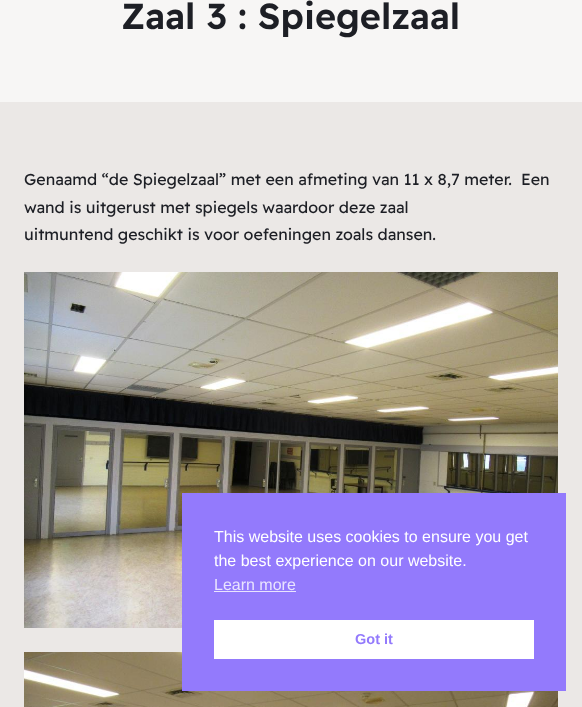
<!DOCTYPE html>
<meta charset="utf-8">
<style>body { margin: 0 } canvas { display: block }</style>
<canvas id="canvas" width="582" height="707"></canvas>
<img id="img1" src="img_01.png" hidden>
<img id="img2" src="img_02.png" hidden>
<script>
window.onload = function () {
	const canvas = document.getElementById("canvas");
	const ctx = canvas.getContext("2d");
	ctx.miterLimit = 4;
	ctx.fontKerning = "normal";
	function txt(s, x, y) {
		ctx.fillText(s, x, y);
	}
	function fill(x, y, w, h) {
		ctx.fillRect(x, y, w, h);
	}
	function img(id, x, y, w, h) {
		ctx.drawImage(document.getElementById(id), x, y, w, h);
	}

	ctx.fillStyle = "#EBE8E6";
	fill(0, 0, 582, 707);
	ctx.fillStyle = "#F7F6F5";
	fill(0, 0, 582, 102);
	img("img1", 24, 272, 534, 356);
	img("img2", 24, 652, 534, 55);
	ctx.fillStyle = "#937AFC";
	fill(182, 493, 384, 198);
	ctx.fillStyle = "#E9E4FE";
	fill(214, 591, 82, 1);
	ctx.fillStyle = "#FFFFFF";
	fill(214, 620, 320, 39);
	ctx.font = "600 36px Readex Pro";
	ctx.fillStyle = "#1D1F25";
	txt("Zaal 3 : Spiegelzaal", 121, 29);
	ctx.font = "16px Readex Pro";
	txt("Genaamd “de Spiegelzaal” met een afmeting van 11 x 8,7 meter.  Een", 24, 185);
	txt("wand is uitgerust met spiegels waardoor deze zaal", 24, 213);
	txt("uitmuntend geschikt is voor oefeningen zoals dansen.", 24, 240);
	ctx.font = "16px Liberation Sans";
	ctx.fillStyle = "#FFFFFF";
	txt("This website uses cookies to ensure you get", 214, 542);
	txt("the best experience on our website.", 214, 566);
	ctx.fillStyle = "#E9E4FE";
	txt("Learn more", 214, 590);
	ctx.font = "bold 14.5px Liberation Sans";
	ctx.fillStyle = "#937AFC";
	txt("Got it", 355, 644);
};
</script>
